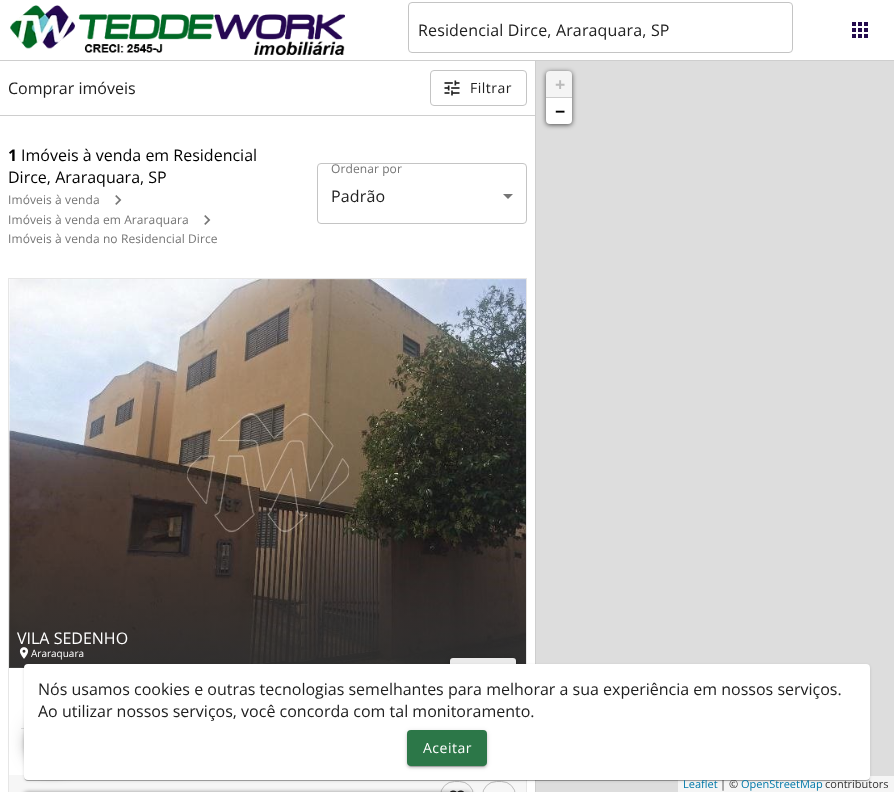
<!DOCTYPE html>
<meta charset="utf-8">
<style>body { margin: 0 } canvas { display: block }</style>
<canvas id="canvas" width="894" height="792"></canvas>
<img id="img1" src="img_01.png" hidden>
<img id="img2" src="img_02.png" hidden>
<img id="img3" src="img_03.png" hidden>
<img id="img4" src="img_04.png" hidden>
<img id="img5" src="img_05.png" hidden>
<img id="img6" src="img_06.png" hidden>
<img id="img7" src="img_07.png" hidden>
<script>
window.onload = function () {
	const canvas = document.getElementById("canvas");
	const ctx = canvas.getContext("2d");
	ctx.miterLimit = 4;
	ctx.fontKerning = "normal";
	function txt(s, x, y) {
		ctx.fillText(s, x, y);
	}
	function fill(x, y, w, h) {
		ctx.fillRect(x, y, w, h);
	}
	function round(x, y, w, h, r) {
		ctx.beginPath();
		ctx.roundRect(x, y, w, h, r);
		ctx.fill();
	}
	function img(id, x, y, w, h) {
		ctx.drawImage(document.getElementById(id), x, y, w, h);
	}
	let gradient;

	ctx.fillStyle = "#FFFFFF";
	fill(0, 0, 894, 792);
	img("img1", 10, 5, 335, 50);
	ctx.beginPath();
	ctx.roundRect(408.5, 2.5, 384, 50, 3.5);
	ctx.strokeStyle = "#C4C4C4";
	ctx.stroke();
	img("img2", 852, 22, 16, 16);
	ctx.fillStyle = "#CECECE";
	fill(0, 60, 894, 1);
	fill(535, 61, 1, 731);
	fill(0, 115, 535, 1);
	ctx.beginPath();
	ctx.roundRect(430.5, 70.5, 96, 35, 3.5);
	ctx.stroke();
	img("img3", 444, 80, 16, 16);
	img("img4", 115, 195, 7, 10);
	img("img4", 204, 215, 7, 10);
	ctx.fillStyle = "#757575";
	ctx.beginPath();
	ctx.moveTo(503, 194);
	ctx.lineTo(508, 199);
	ctx.lineTo(513, 194);
	ctx.closePath();
	ctx.fill();
	ctx.beginPath();
	ctx.roundRect(317.5, 163.5, 209, 60, 3.5);
	ctx.stroke();
	ctx.strokeStyle = "#E6E6E6";
	ctx.strokeRect(8.5, 278.5, 518, 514);
	ctx.fillStyle = "#E6E6E6";
	fill(9, 667, 16, 1);
	img("img5", 9, 279, 517, 388);
	gradient = ctx.createLinearGradient(268, 279, 268, 668);
	gradient.addColorStop(0.65, "rgba(47, 47, 47, 0)");
	gradient.addColorStop(1, "rgba(47, 47, 47, 0.9)");
	ctx.fillStyle = gradient;
	fill(9, 535, 517, 133);
	img("img6", 19, 647, 10, 12);
	ctx.fillStyle = "rgba(0, 0, 0, 0.3)";
	ctx.filter = "blur(2.5px)";
	ctx.beginPath();
	ctx.roundRect(450, 660, 66, 20, 3);
	ctx.fill();
	ctx.filter = "none";
	ctx.fillStyle = "#EAEAEA";
	round(450, 658, 66, 20, 3);
	ctx.fillStyle = "#E0E0E0";
	fill(21, 728, 3, 1);
	ctx.fillStyle = "#F6F6F6";
	fill(9, 775, 517, 17);
	ctx.beginPath();
	ctx.roundRect(440.5, 781.5, 33, 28, 16.5);
	ctx.strokeStyle = "#BDBDBD";
	ctx.stroke();
	img("img7", 450, 790, 14, 2);
	ctx.beginPath();
	ctx.roundRect(482.5, 781.5, 33, 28, 16.5);
	ctx.stroke();
	ctx.fillStyle = "#DDDDDD";
	fill(536, 61, 358, 731);
	ctx.fillStyle = "rgba(0, 0, 0, 0.65)";
	ctx.filter = "blur(2.5px)";
	ctx.beginPath();
	ctx.roundRect(546, 72, 26, 53, 4);
	ctx.fill();
	ctx.filter = "none";
	ctx.fillStyle = "#F4F4F4";
	ctx.beginPath();
	ctx.roundRect(546, 71, 26, 27, [4, 4, 0, 0]);
	ctx.fill();
	ctx.fillStyle = "#CCCCCC";
	fill(546, 97, 26, 1);
	ctx.fillStyle = "#FFFFFF";
	ctx.beginPath();
	ctx.roundRect(546, 98, 26, 26, [0, 0, 4, 4]);
	ctx.fill();
	ctx.fillStyle = "#F5F5F5";
	fill(678, 776, 216, 16);
	ctx.fillStyle = "rgba(0, 0, 0, 0.12)";
	ctx.filter = "blur(1.5px)";
	ctx.beginPath();
	ctx.roundRect(24, 665, 846, 116, 4);
	ctx.fill();
	ctx.filter = "none";
	ctx.fillStyle = "rgba(0, 0, 0, 0.14)";
	ctx.filter = "blur(0.5px)";
	ctx.beginPath();
	ctx.roundRect(24, 665, 846, 116, 4);
	ctx.fill();
	ctx.filter = "none";
	ctx.fillStyle = "rgba(0, 0, 0, 0.2)";
	ctx.filter = "blur(0.5px)";
	ctx.beginPath();
	ctx.roundRect(25, 667, 844, 114, 3);
	ctx.fill();
	ctx.filter = "none";
	ctx.fillStyle = "rgba(0, 0, 0, 0.12)";
	ctx.filter = "blur(9px)";
	ctx.beginPath();
	ctx.roundRect(24, 713, 56, 56, 28);
	ctx.fill();
	ctx.filter = "none";
	ctx.fillStyle = "rgba(0, 0, 0, 0.14)";
	ctx.filter = "blur(5px)";
	ctx.beginPath();
	ctx.roundRect(24, 718, 56, 56, 28);
	ctx.fill();
	ctx.filter = "none";
	ctx.fillStyle = "rgba(0, 0, 0, 0.2)";
	ctx.filter = "blur(2.5px)";
	ctx.beginPath();
	ctx.roundRect(25, 716, 54, 54, 27);
	ctx.fill();
	ctx.filter = "none";
	ctx.fillStyle = "rgba(0, 0, 0, 0.4)";
	ctx.filter = "blur(2px)";
	ctx.beginPath();
	ctx.roundRect(23, 792, 450, 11, 5);
	ctx.fill();
	ctx.filter = "none";
	ctx.letterSpacing = "0.15px";
	ctx.font = "16px Open Sans";
	ctx.fillStyle = "#212121";
	txt("Residencial Dirce, Araraquara, SP", 418, 36);
	ctx.letterSpacing = "0px";
	txt("Comprar imóveis", 8, 94);
	ctx.letterSpacing = "0.5px";
	ctx.font = "14px Open Sans";
	txt("Filtrar", 470, 93);
	ctx.letterSpacing = "0px";
	ctx.font = "bold 16px Open Sans";
	ctx.fillStyle = "#000000";
	txt("1", 8, 161);
	ctx.font = "16px Open Sans";
	txt("Imóveis à venda em Residencial", 21, 161);
	txt("Dirce, Araraquara, SP", 8, 183);
	ctx.letterSpacing = "0.1px";
	ctx.font = "12px Open Sans";
	ctx.fillStyle = "#757575";
	txt("Imóveis à venda", 8, 204);
	txt("Imóveis à venda em Araraquara", 8, 224);
	txt("Imóveis à venda no Residencial Dirce", 8, 243);
	txt("Ordenar por", 331, 173);
	ctx.letterSpacing = "0.15px";
	ctx.font = "16px Open Sans";
	ctx.fillStyle = "#212121";
	txt("Padrão", 331, 202);
	ctx.letterSpacing = "0px";
	ctx.fillStyle = "#FFFFFF";
	txt("VILA SEDENHO", 17, 644);
	ctx.font = "10px Open Sans";
	txt("Araraquara", 31, 657);
	ctx.font = "bold 18px Open Sans";
	ctx.fillStyle = "#BBBBBB";
	txt("+", 555, 91);
	ctx.fillStyle = "#000000";
	txt("−", 555, 118);
	ctx.font = "11px Open Sans";
	ctx.fillStyle = "#0078A8";
	txt("Leaflet", 683, 788);
	ctx.fillStyle = "#333333";
	txt("| ©", 720, 788);
	ctx.fillStyle = "#0078A8";
	txt("OpenStreetMap", 741, 788);
	ctx.fillStyle = "#333333";
	txt("contributors", 825, 788);
	ctx.fillStyle = "#FFFFFF";
	round(24, 664, 846, 116, 4);
	ctx.font = "16px Open Sans";
	ctx.fillStyle = "#212121";
	txt("Nós usamos cookies e outras tecnologias semelhantes para melhorar a sua experiência em nossos serviços.", 38, 695);
	txt("Ao utilizar nossos serviços, você concorda com tal monitoramento.", 38, 717);
	ctx.fillStyle = "rgba(0, 0, 0, 0.12)";
	ctx.filter = "blur(2.5px)";
	ctx.beginPath();
	ctx.roundRect(407, 731, 80, 36, 4);
	ctx.fill();
	ctx.filter = "none";
	ctx.fillStyle = "rgba(0, 0, 0, 0.14)";
	ctx.filter = "blur(1px)";
	ctx.beginPath();
	ctx.roundRect(407, 732, 80, 36, 4);
	ctx.fill();
	ctx.filter = "none";
	ctx.fillStyle = "rgba(0, 0, 0, 0.2)";
	ctx.filter = "blur(0.5px)";
	ctx.beginPath();
	ctx.roundRect(409, 735, 76, 32, 2);
	ctx.fill();
	ctx.filter = "none";
	ctx.fillStyle = "#2C7748";
	round(407, 730, 80, 36, 4);
	ctx.letterSpacing = "0.5px";
	ctx.font = "14px Open Sans";
	ctx.fillStyle = "#FFFFFF";
	txt("Aceitar", 423, 753);
};
</script>
